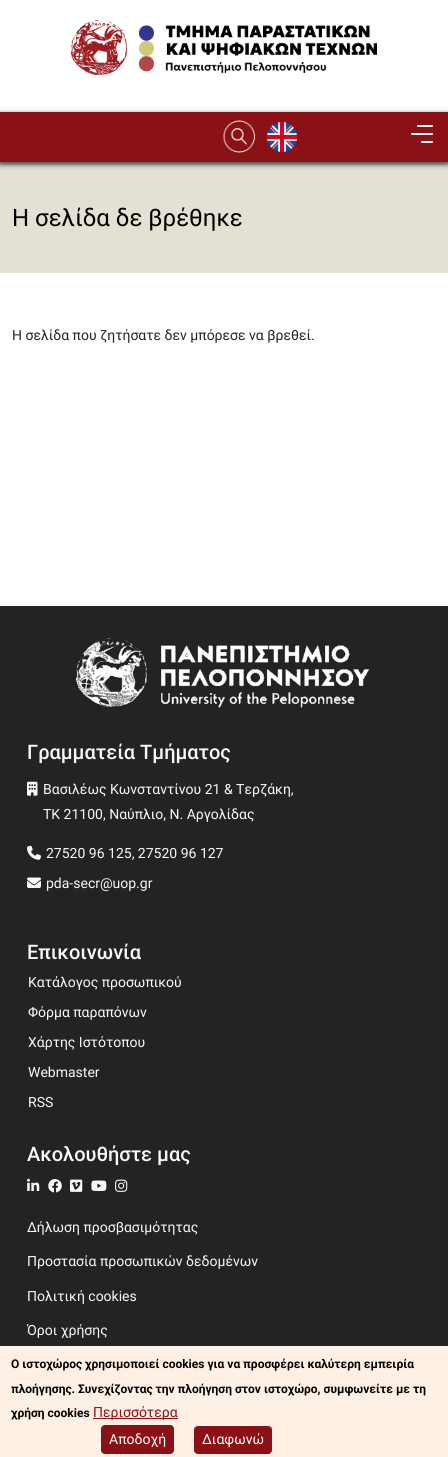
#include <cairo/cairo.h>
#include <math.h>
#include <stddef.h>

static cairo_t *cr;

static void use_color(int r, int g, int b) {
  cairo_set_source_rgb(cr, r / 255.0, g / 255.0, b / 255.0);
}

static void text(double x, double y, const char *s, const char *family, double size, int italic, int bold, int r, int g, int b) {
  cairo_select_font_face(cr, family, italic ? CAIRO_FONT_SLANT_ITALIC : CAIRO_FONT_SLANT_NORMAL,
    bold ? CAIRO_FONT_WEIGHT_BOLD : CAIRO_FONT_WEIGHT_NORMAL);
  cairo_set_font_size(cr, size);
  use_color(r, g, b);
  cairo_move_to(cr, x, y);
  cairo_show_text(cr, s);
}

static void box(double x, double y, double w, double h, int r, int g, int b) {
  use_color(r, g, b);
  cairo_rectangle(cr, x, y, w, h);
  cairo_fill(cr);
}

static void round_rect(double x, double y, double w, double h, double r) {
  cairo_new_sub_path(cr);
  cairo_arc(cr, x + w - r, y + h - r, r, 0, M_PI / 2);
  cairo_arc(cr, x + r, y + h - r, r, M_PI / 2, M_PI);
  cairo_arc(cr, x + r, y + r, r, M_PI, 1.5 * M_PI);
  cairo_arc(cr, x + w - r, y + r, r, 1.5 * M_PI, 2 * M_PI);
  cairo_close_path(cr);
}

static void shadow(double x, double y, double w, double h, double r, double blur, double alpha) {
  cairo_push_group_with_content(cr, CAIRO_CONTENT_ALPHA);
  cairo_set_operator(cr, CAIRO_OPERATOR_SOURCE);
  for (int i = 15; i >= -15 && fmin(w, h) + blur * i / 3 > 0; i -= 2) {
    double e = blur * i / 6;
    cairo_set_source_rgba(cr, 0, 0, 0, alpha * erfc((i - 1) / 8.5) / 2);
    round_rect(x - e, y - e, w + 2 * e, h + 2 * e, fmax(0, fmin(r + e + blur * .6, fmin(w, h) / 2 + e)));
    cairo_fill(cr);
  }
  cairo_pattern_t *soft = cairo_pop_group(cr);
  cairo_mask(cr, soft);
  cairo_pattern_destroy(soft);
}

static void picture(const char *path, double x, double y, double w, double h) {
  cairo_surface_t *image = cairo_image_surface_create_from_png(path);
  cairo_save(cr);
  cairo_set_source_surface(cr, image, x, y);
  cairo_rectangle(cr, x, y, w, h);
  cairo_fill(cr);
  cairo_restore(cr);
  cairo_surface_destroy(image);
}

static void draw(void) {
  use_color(255, 255, 255);
  cairo_paint(cr);
  picture("img_01.png", 71, 20, 306, 55);
  box(0, 163, 448, 110, 227, 225, 211);
  use_color(0, 0, 0);
  shadow(0, 114, 448, 50, 0, 2, 0.5);
  shadow(0, 114, 448, 50, 0, 3, 0.5);
  box(0, 112, 448, 50, 140, 17, 22);
  picture("img_02.png", 221, 114, 38, 43);
  picture("img_03.png", 267, 122, 30, 30);
  use_color(255, 255, 255);
  round_rect(417, 125, 16, 2, 1);
  cairo_fill(cr);
  round_rect(411, 133, 22, 2, 1);
  cairo_fill(cr);
  round_rect(421, 141, 12, 2, 1);
  cairo_fill(cr);
  box(0, 606, 448, 740, 34, 35, 34);
  picture("img_04.png", 76, 638, 294, 70);
  picture("img_05.png", 27, 781, 11, 15);
  picture("img_06.png", 27, 845, 14, 15);
  picture("img_07.png", 27, 877, 14, 11);
  picture("img_08.png", 27, 1178, 13, 13);
  picture("img_09.png", 48, 1179, 14, 14);
  picture("img_10.png", 70, 1179, 13, 13);
  picture("img_11.png", 91, 1180, 16, 11);
  picture("img_12.png", 115, 1179, 13, 13);
  box(0, 1346, 448, 111, 255, 240, 229);
  box(93, 1418, 85, 1, 140, 17, 22);
  round_rect(101, 1425, 73, 29, 4);
  cairo_fill(cr);
  round_rect(194, 1425, 78, 29, 4);
  cairo_fill(cr);
  use_color(255, 255, 255);
  cairo_new_path(cr);
  cairo_move_to(cr, 198, 1426);
  cairo_line_to(cr, 268, 1426);
  cairo_curve_to(cr, 270, 1426, 272, 1428, 272, 1430);
  cairo_curve_to(cr, 272, 1422, 261, 1425, 256, 1425);
  cairo_line_to(cr, 210, 1425);
  cairo_curve_to(cr, 205, 1425, 194, 1422, 194, 1430);
  cairo_curve_to(cr, 194, 1428, 196, 1426, 198, 1426);
  cairo_close_path(cr);
  cairo_fill(cr);
  text(12, 226, "Η σελίδα δε βρέθηκε", "Roboto", 24, 0, 0, 0, 0, 0);
  text(12, 340, "Η σελίδα που ζητήσατε δεν μπόρεσε να βρεθεί.", "Roboto", 14, 0, 0, 33, 37, 41);
  text(27, 759, "Γραμματεία Τμήματος", "Roboto Medium", 20, 0, 0, 248, 249, 250);
  text(43, 794, "Βασιλέως Κωνσταντίνου 21 & Τερζάκη,", "Roboto", 14, 0, 0, 248, 249, 250);
  text(43, 819, "ΤΚ 21100, Ναύπλιο, Ν. Αργολίδας", "Roboto", 14, 0, 0, 248, 249, 250);
  text(46, 858, "27520 96 125, 27520 96 127", "Roboto", 14, 0, 0, 248, 249, 250);
  text(46, 888, "pda-secr@uop.gr", "Roboto", 14, 0, 0, 248, 249, 250);
  text(27, 959, "Επικοινωνία", "Roboto Medium", 20, 0, 0, 248, 249, 250);
  text(28, 987, "Κατάλογος προσωπικού", "Roboto", 14, 0, 0, 248, 249, 250);
  text(28, 1017, "Φόρμα παραπόνων", "Roboto", 14, 0, 0, 248, 249, 250);
  text(28, 1047, "Χάρτης Ιστότοπου", "Roboto", 14, 0, 0, 248, 249, 250);
  text(28, 1077, "Webmaster", "Roboto", 14, 0, 0, 248, 249, 250);
  text(28, 1107, "RSS", "Roboto", 14, 0, 0, 248, 249, 250);
  text(27, 1161, "Ακολουθήστε μας", "Roboto Medium", 20, 0, 0, 248, 249, 250);
  text(27, 1232, "Δήλωση προσβασιμότητας", "Roboto", 14, 0, 0, 248, 249, 250);
  text(27, 1266, "Προστασία προσωπικών δεδομένων", "Roboto", 14, 0, 0, 248, 249, 250);
  text(27, 1301, "Πολιτική cookies", "Roboto", 14, 0, 0, 248, 249, 250);
  text(27, 1335, "Όροι χρήσης", "Roboto", 14, 0, 0, 248, 249, 250);
  text(11, 1368, "Ο ιστοχώρος χρησιμοποιεί cookies για να προσφέρει καλύτερη εμπειρία", "Roboto", 12, 0, 1, 0, 0, 0);
  text(11, 1393, "πλοήγησης. Συνεχίζοντας την πλοήγηση στον ιστοχώρο, συμφωνείτε με τη", "Roboto", 12, 0, 1, 0, 0, 0);
  text(11, 1417, "χρήση cookies", "Roboto", 12, 0, 1, 0, 0, 0);
  text(93, 1417, "Περισσότερα", "Roboto", 14, 0, 0, 140, 17, 22);
  text(109, 1444, "Αποδοχή", "Roboto", 14, 0, 0, 255, 255, 255);
  text(202, 1444, "Διαφωνώ", "Roboto", 14, 0, 0, 255, 255, 255);
}

int main(void) {
  cairo_surface_t *surface = cairo_image_surface_create(CAIRO_FORMAT_RGB24, 448, 1457);
  cr = cairo_create(surface);
  cairo_font_options_t *options = cairo_font_options_create();
  cairo_font_options_set_hint_metrics(options, CAIRO_HINT_METRICS_OFF);
  cairo_font_options_set_hint_style(options, CAIRO_HINT_STYLE_NONE);
  cairo_set_font_options(cr, options);
  cairo_set_miter_limit(cr, 4);
  draw();
  cairo_surface_write_to_png(surface, "out.png");
  cairo_font_options_destroy(options);
  cairo_destroy(cr);
  cairo_surface_destroy(surface);
  return 0;
}
